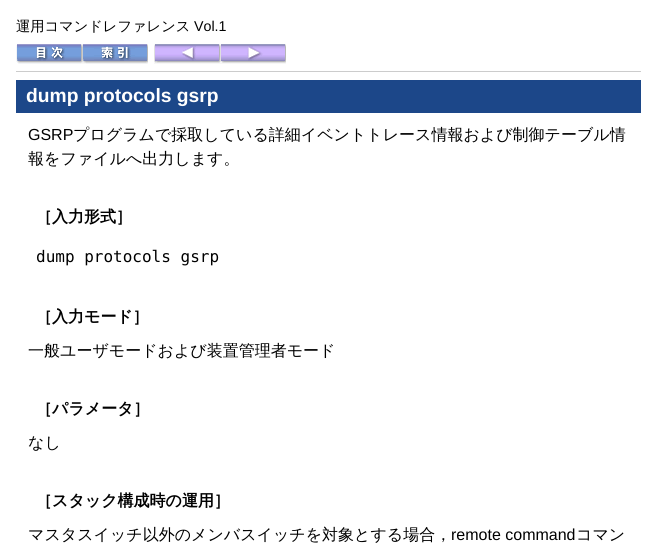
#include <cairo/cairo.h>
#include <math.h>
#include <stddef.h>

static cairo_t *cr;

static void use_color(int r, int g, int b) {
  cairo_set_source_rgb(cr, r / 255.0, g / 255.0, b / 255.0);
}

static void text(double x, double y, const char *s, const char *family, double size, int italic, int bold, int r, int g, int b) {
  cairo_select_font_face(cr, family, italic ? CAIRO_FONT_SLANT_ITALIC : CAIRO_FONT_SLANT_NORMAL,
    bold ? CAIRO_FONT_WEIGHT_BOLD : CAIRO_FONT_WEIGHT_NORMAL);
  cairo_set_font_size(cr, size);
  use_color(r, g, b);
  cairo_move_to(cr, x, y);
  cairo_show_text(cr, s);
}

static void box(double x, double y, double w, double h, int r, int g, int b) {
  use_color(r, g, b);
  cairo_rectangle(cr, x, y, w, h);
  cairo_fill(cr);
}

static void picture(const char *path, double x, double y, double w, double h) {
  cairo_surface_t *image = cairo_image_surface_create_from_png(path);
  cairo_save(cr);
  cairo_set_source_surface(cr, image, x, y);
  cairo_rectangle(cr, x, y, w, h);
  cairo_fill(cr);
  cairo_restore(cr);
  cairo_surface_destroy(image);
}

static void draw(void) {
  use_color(255, 255, 255);
  cairo_paint(cr);
  box(16, 71, 625, 1, 204, 204, 204);
  picture("img_01.png", 16, 44, 66, 20);
  picture("img_02.png", 82, 44, 66, 20);
  picture("img_03.png", 154, 44, 66, 20);
  picture("img_04.png", 220, 44, 66, 20);
  box(16, 80, 625, 33, 28, 71, 137);
  text(16, 31, "運用コマンドレファレンス", "WenQuanYi Zen Hei Medium", 14.25, 0, 0, 0, 0, 0);
  text(194, 31, "Vol.1", "Liberation Sans", 14.25, 0, 0, 0, 0, 0);
  text(26, 102, "dump protocols gsrp", "Liberation Sans", 19.25, 0, 1, 255, 255, 255);
  text(28, 140, "GSRP", "Liberation Sans", 16, 0, 0, 0, 0, 0);
  text(73, 140, "プログラムで採取している詳細イベントトレース情報および制御テーブル情", "WenQuanYi Zen Hei Medium", 16, 0, 0, 0, 0, 0);
  text(28, 164, "報をファイルへ出力します。", "WenQuanYi Zen Hei Medium", 16, 0, 0, 0, 0, 0);
  text(36, 222, "［入力形式］", "WenQuanYi Zen Hei", 16, 0, 1, 0, 0, 0);
  text(36, 262, "dump protocols gsrp", "DejaVu Sans Mono", 16, 0, 0, 0, 0, 0);
  text(36, 322, "［入力モード］", "WenQuanYi Zen Hei", 16, 0, 1, 0, 0, 0);
  text(28, 356, "一般ユーザモードおよび装置管理者モード", "WenQuanYi Zen Hei Medium", 16, 0, 0, 0, 0, 0);
  text(36, 414, "［パラメータ］", "WenQuanYi Zen Hei", 16, 0, 1, 0, 0, 0);
  text(28, 448, "なし", "WenQuanYi Zen Hei Medium", 16, 0, 0, 0, 0, 0);
  text(36, 506, "［スタック構成時の運用］", "WenQuanYi Zen Hei", 16, 0, 1, 0, 0, 0);
  text(28, 540, "マスタスイッチ以外のメンバスイッチを対象とする場合，", "WenQuanYi Zen Hei Medium", 16, 0, 0, 0, 0, 0);
  text(451, 540, "remote command", "Liberation Sans", 16, 0, 0, 0, 0, 0);
  text(576, 540, "コマン", "WenQuanYi Zen Hei Medium", 16, 0, 0, 0, 0, 0);
}

int main(void) {
  cairo_surface_t *surface = cairo_image_surface_create(CAIRO_FORMAT_RGB24, 657, 559);
  cr = cairo_create(surface);
  cairo_font_options_t *options = cairo_font_options_create();
  cairo_font_options_set_hint_metrics(options, CAIRO_HINT_METRICS_OFF);
  cairo_font_options_set_hint_style(options, CAIRO_HINT_STYLE_NONE);
  cairo_set_font_options(cr, options);
  cairo_set_miter_limit(cr, 4);
  draw();
  cairo_surface_write_to_png(surface, "out.png");
  cairo_font_options_destroy(options);
  cairo_destroy(cr);
  cairo_surface_destroy(surface);
  return 0;
}
